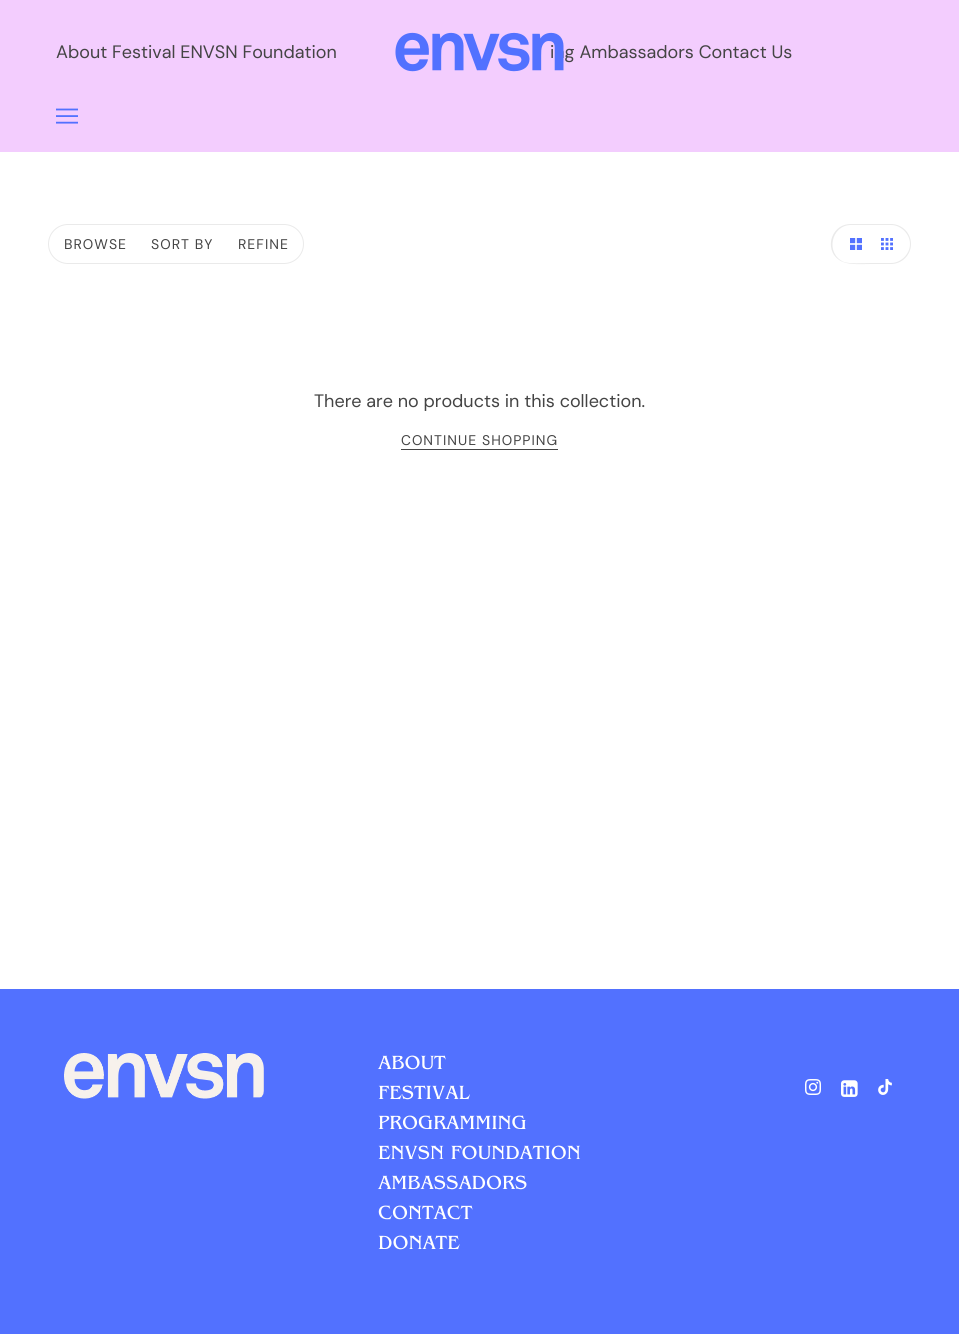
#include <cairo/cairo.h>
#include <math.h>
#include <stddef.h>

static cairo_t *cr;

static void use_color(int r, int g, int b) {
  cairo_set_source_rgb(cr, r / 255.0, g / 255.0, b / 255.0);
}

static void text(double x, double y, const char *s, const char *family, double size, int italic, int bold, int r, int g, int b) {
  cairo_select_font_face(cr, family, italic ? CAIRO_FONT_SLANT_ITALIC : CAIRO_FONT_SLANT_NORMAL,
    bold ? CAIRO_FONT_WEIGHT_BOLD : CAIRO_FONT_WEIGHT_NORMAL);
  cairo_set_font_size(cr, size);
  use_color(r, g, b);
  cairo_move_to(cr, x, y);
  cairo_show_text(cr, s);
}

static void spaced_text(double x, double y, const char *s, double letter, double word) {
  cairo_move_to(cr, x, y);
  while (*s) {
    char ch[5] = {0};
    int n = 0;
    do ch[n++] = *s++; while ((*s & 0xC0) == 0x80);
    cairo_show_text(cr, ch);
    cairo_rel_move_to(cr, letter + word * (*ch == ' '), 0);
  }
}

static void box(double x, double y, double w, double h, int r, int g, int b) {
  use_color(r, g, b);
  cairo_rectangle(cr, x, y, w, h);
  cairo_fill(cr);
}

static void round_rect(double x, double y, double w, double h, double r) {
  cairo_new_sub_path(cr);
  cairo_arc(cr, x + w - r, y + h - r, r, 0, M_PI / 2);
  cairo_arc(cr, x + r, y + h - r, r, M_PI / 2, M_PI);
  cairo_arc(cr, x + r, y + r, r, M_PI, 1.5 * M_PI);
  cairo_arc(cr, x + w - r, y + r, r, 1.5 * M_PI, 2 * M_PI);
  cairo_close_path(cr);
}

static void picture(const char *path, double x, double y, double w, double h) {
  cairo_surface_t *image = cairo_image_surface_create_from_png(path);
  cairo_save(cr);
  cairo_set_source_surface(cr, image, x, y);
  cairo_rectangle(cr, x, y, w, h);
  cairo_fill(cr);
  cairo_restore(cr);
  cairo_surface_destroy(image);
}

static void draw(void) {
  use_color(255, 255, 255);
  cairo_paint(cr);
  box(0, 0, 959, 152, 243, 205, 254);
  picture("img_02.png", 56, 108, 22, 16);
  round_rect(48.5, 224.5, 255, 39, 19.5);
  use_color(234, 234, 234);
  cairo_set_line_width(cr, 1);
  cairo_stroke(cr);
  cairo_set_fill_rule(cr, CAIRO_FILL_RULE_EVEN_ODD);
  cairo_new_path(cr);
  cairo_move_to(cr, 851, 224);
  cairo_line_to(cr, 871, 224);
  cairo_line_to(cr, 871, 264);
  cairo_curve_to(cr, 863, 264, 850, 265, 843, 262);
  cairo_curve_to(cr, 823, 254, 829, 224, 851, 224);
  cairo_close_path(cr);
  cairo_move_to(cr, 851, 225);
  cairo_line_to(cr, 871, 225);
  cairo_line_to(cr, 871, 263);
  cairo_curve_to(cr, 863, 263, 850, 264, 844, 262);
  cairo_curve_to(cr, 825, 254, 831, 225, 851, 225);
  cairo_close_path(cr);
  cairo_fill(cr);
  picture("img_03.png", 850, 238, 12, 12);
  cairo_new_path(cr);
  cairo_move_to(cr, 871, 224);
  cairo_line_to(cr, 891, 224);
  cairo_curve_to(cr, 902, 224, 911, 233, 911, 244);
  cairo_curve_to(cr, 911, 255, 902, 264, 891, 264);
  cairo_line_to(cr, 871, 264);
  cairo_close_path(cr);
  cairo_move_to(cr, 871, 225);
  cairo_line_to(cr, 891, 225);
  cairo_curve_to(cr, 901, 225, 910, 234, 910, 244);
  cairo_curve_to(cr, 910, 254, 901, 263, 891, 263);
  cairo_line_to(cr, 871, 263);
  cairo_close_path(cr);
  cairo_fill(cr);
  picture("img_04.png", 881, 238, 12, 12);
  box(401, 449, 157, 1, 68, 68, 68);
  box(0, 989, 959, 345, 82, 113, 255);
  picture("img_05.png", 64, 1053, 200, 46);
  picture("img_06.png", 805, 1079, 16, 16);
  picture("img_07.png", 841, 1080, 17, 17);
  picture("img_08.png", 878, 1079, 14, 16);
  text(56, 58, "About Festival ENVSN Foundation", "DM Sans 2", 18, 0, 0, 68, 68, 68);
  text(550, 58, "ing Ambassadors Contact Us", "DM Sans 2", 18, 0, 0, 68, 68, 68);
  picture("img_01.png", 395, 32, 169, 40);
  cairo_select_font_face(cr, "DM Sans", CAIRO_FONT_SLANT_NORMAL, CAIRO_FONT_WEIGHT_NORMAL);
  cairo_set_font_size(cr, 14);
  spaced_text(64, 249, "BROWSE", 1, 0);
  spaced_text(151, 249, "SORT BY", 1, 0);
  spaced_text(238, 249, "REFINE", 1, 0);
  text(314, 407, "There are no products in this collection.", "DM Sans 2", 18, 0, 0, 68, 68, 68);
  cairo_select_font_face(cr, "DM Sans", CAIRO_FONT_SLANT_NORMAL, CAIRO_FONT_WEIGHT_NORMAL);
  cairo_set_font_size(cr, 14);
  spaced_text(401, 445, "CONTINUE SHOPPING", 1, 0);
  text(378, 1069, "ABOUT", "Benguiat", 20, 0, 0, 255, 255, 255);
  text(378, 1099, "FESTIVAL", "Benguiat", 20, 0, 0, 255, 255, 255);
  text(378, 1129, "PROGRAMMING", "Benguiat", 20, 0, 0, 255, 255, 255);
  text(378, 1159, "ENVSN FOUNDATION", "Benguiat", 20, 0, 0, 255, 255, 255);
  text(378, 1189, "AMBASSADORS", "Benguiat", 20, 0, 0, 255, 255, 255);
  text(378, 1219, "CONTACT", "Benguiat", 20, 0, 0, 255, 255, 255);
  text(378, 1249, "DONATE", "Benguiat", 20, 0, 0, 255, 255, 255);
}

int main(void) {
  cairo_surface_t *surface = cairo_image_surface_create(CAIRO_FORMAT_RGB24, 959, 1334);
  cr = cairo_create(surface);
  cairo_font_options_t *options = cairo_font_options_create();
  cairo_font_options_set_hint_metrics(options, CAIRO_HINT_METRICS_OFF);
  cairo_font_options_set_hint_style(options, CAIRO_HINT_STYLE_NONE);
  cairo_set_font_options(cr, options);
  cairo_set_miter_limit(cr, 4);
  draw();
  cairo_surface_write_to_png(surface, "out.png");
  cairo_font_options_destroy(options);
  cairo_destroy(cr);
  cairo_surface_destroy(surface);
  return 0;
}
